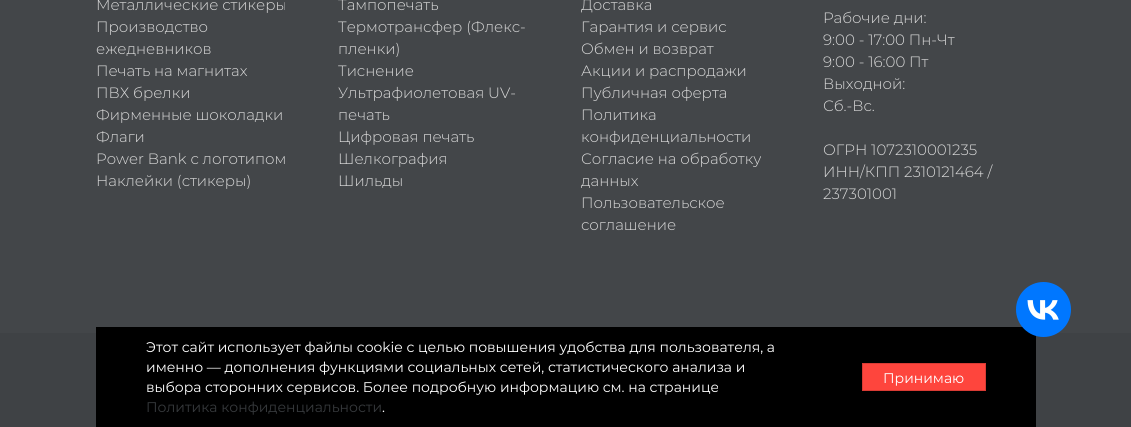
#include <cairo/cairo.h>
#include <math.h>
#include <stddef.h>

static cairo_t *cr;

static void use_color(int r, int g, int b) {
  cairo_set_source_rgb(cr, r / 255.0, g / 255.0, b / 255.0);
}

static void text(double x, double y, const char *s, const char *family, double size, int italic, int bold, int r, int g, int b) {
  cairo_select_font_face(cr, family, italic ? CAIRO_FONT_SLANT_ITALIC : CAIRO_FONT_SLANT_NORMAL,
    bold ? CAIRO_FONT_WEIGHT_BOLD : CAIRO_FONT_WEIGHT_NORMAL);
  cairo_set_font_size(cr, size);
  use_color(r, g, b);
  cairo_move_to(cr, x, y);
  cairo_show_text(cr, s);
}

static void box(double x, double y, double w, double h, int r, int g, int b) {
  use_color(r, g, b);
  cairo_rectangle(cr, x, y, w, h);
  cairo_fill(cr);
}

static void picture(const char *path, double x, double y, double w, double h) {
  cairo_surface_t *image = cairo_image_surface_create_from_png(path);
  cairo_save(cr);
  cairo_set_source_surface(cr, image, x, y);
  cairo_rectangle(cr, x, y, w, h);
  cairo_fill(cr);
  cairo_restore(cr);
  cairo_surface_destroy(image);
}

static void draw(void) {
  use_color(67, 70, 73);
  cairo_paint(cr);
  box(0, 333, 1131, 94, 63, 66, 69);
  box(96, 327, 940, 100, 0, 0, 0);
  picture("img_01.png", 1016, 282, 55, 55);
  use_color(254, 69, 61);
  cairo_rectangle(cr, 862.5, 363.5, 123, 27);
  cairo_fill_preserve(cr);
  use_color(216, 59, 52);
  cairo_set_line_width(cr, 1);
  cairo_stroke(cr);
  text(96, 10, "Металлические стикеры", "Montserrat Light", 15, 0, 0, 218, 218, 218);
  text(96, 32, "Производство", "Montserrat Light", 15, 0, 0, 218, 218, 218);
  text(96, 54, "ежедневников", "Montserrat Light", 15, 0, 0, 218, 218, 218);
  text(96, 76, "Печать на магнитах", "Montserrat Light", 15, 0, 0, 218, 218, 218);
  text(96, 98, "ПВХ брелки", "Montserrat Light", 15, 0, 0, 218, 218, 218);
  text(96, 120, "Фирменные шоколадки", "Montserrat Light", 15, 0, 0, 218, 218, 218);
  text(96, 142, "Флаги", "Montserrat Light", 15, 0, 0, 218, 218, 218);
  text(96, 164, "Power Bank с логотипом", "Montserrat Light", 15, 0, 0, 218, 218, 218);
  text(96, 186, "Наклейки (стикеры)", "Montserrat Light", 15, 0, 0, 218, 218, 218);
  text(338, 10, "Тампопечать", "Montserrat Light", 15, 0, 0, 218, 218, 218);
  text(338, 32, "Термотрансфер (Флекс-", "Montserrat Light", 15, 0, 0, 218, 218, 218);
  text(338, 54, "пленки)", "Montserrat Light", 15, 0, 0, 218, 218, 218);
  text(338, 76, "Тиснение", "Montserrat Light", 15, 0, 0, 218, 218, 218);
  text(338, 98, "Ультрафиолетовая UV-", "Montserrat Light", 15, 0, 0, 218, 218, 218);
  text(338, 120, "печать", "Montserrat Light", 15, 0, 0, 218, 218, 218);
  text(338, 142, "Цифровая печать", "Montserrat Light", 15, 0, 0, 218, 218, 218);
  text(338, 164, "Шелкография", "Montserrat Light", 15, 0, 0, 218, 218, 218);
  text(338, 186, "Шильды", "Montserrat Light", 15, 0, 0, 218, 218, 218);
  text(581, 10, "Доставка", "Montserrat Light", 15, 0, 0, 218, 218, 218);
  text(581, 32, "Гарантия и сервис", "Montserrat Light", 15, 0, 0, 218, 218, 218);
  text(581, 54, "Обмен и возврат", "Montserrat Light", 15, 0, 0, 218, 218, 218);
  text(581, 76, "Акции и распродажи", "Montserrat Light", 15, 0, 0, 218, 218, 218);
  text(581, 98, "Публичная оферта", "Montserrat Light", 15, 0, 0, 218, 218, 218);
  text(581, 120, "Политика", "Montserrat Light", 15, 0, 0, 218, 218, 218);
  text(581, 142, "конфиденциальности", "Montserrat Light", 15, 0, 0, 218, 218, 218);
  text(581, 164, "Согласие на обработку", "Montserrat Light", 15, 0, 0, 218, 218, 218);
  text(581, 186, "данных", "Montserrat Light", 15, 0, 0, 218, 218, 218);
  text(581, 208, "Пользовательское", "Montserrat Light", 15, 0, 0, 218, 218, 218);
  text(581, 230, "соглашение", "Montserrat Light", 15, 0, 0, 218, 218, 218);
  text(823, 23, "Рабочие дни:", "Montserrat Light", 15, 0, 0, 218, 218, 218);
  text(823, 45, "9:00 - 17:00 Пн-Чт", "Montserrat Light", 15, 0, 0, 218, 218, 218);
  text(823, 67, "9:00 - 16:00 Пт", "Montserrat Light", 15, 0, 0, 218, 218, 218);
  text(823, 89, "Выходной:", "Montserrat Light", 15, 0, 0, 218, 218, 218);
  text(823, 111, "Сб.-Вс.", "Montserrat Light", 15, 0, 0, 218, 218, 218);
  text(823, 155, "ОГРН 1072310001235", "Montserrat Light", 15, 0, 0, 218, 218, 218);
  text(823, 177, "ИНН/КПП 2310121464 /", "Montserrat Light", 15, 0, 0, 218, 218, 218);
  text(823, 199, "237301001", "Montserrat Light", 15, 0, 0, 218, 218, 218);
  text(146, 352, "Этот сайт использует файлы cookie с целью повышения удобства для пользователя, а", "Montserrat", 14, 0, 0, 255, 255, 255);
  text(146, 372, "именно — дополнения функциями социальных сетей, статистического анализа и", "Montserrat", 14, 0, 0, 255, 255, 255);
  text(146, 392, "выбора сторонних сервисов. Более подробную информацию см. на странице", "Montserrat", 14, 0, 0, 255, 255, 255);
  text(146, 412, "Политика конфиденциальности", "Montserrat", 14, 0, 0, 54, 57, 60);
  text(382, 412, ".", "Montserrat", 14, 0, 0, 255, 255, 255);
  text(883, 383, "Принимаю", "Montserrat", 14, 0, 0, 255, 255, 255);
}

int main(void) {
  cairo_surface_t *surface = cairo_image_surface_create(CAIRO_FORMAT_RGB24, 1131, 427);
  cr = cairo_create(surface);
  cairo_font_options_t *options = cairo_font_options_create();
  cairo_font_options_set_hint_metrics(options, CAIRO_HINT_METRICS_OFF);
  cairo_font_options_set_hint_style(options, CAIRO_HINT_STYLE_NONE);
  cairo_set_font_options(cr, options);
  cairo_set_miter_limit(cr, 4);
  draw();
  cairo_surface_write_to_png(surface, "out.png");
  cairo_font_options_destroy(options);
  cairo_destroy(cr);
  cairo_surface_destroy(surface);
  return 0;
}
